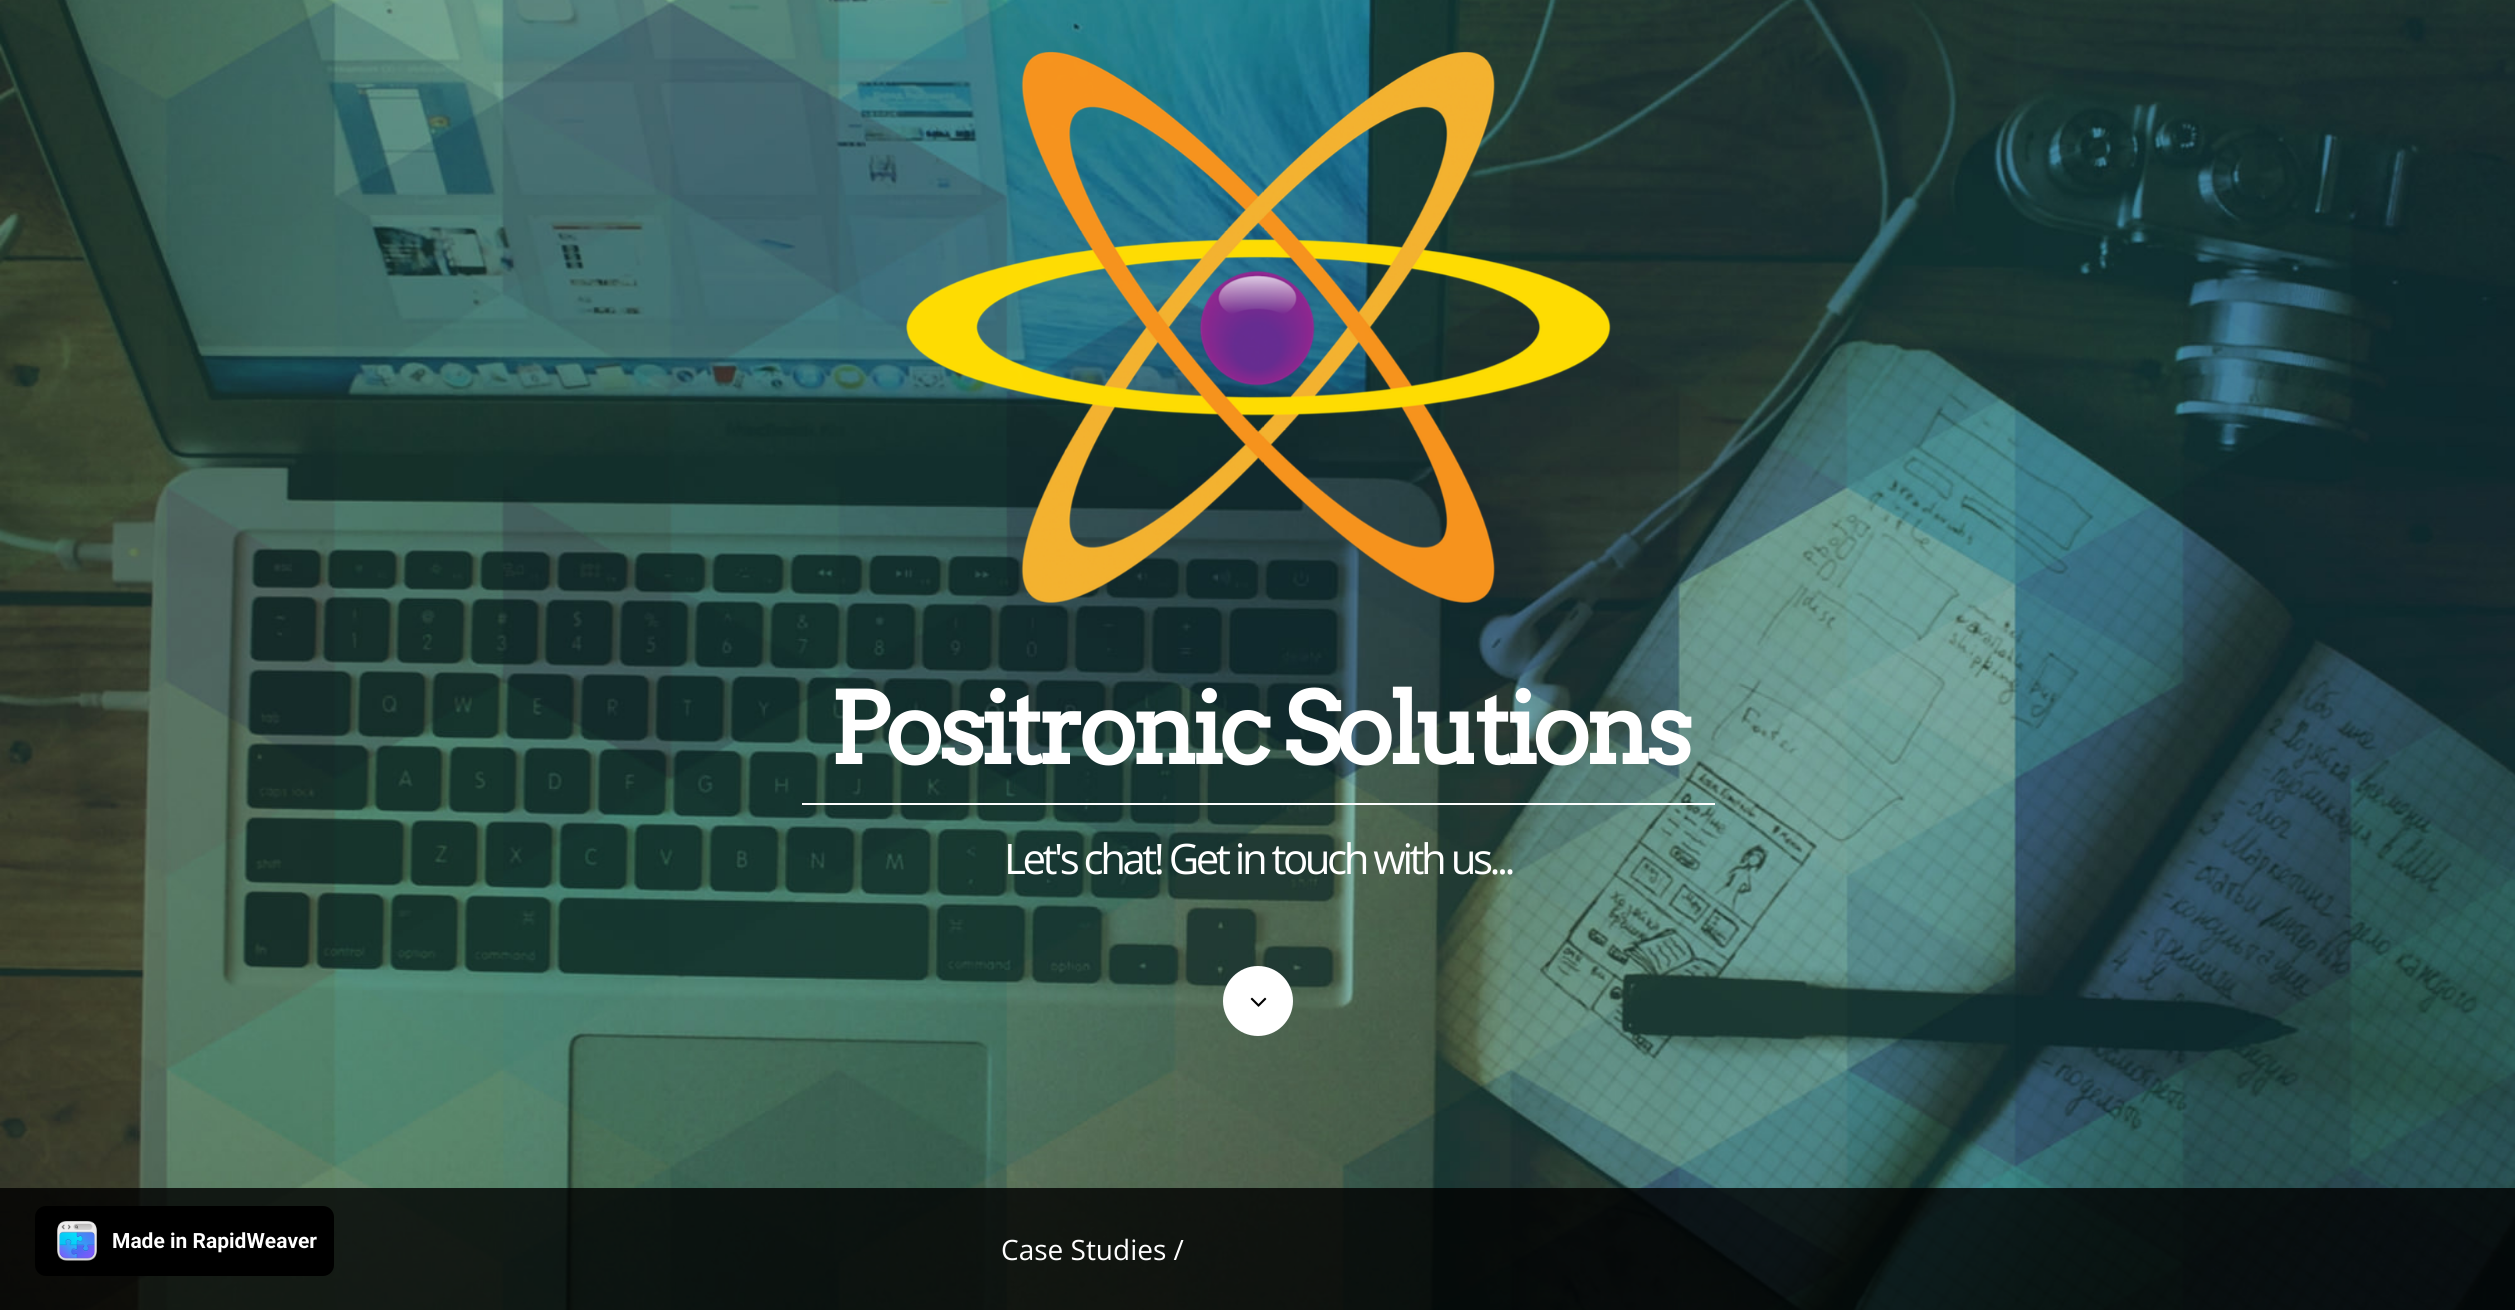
#include <cairo/cairo.h>
#include <math.h>
#include <stddef.h>

static cairo_t *cr;

static void use_color(int r, int g, int b) {
  cairo_set_source_rgb(cr, r / 255.0, g / 255.0, b / 255.0);
}

static void text(double x, double y, const char *s, const char *family, double size, int italic, int bold, int r, int g, int b) {
  cairo_select_font_face(cr, family, italic ? CAIRO_FONT_SLANT_ITALIC : CAIRO_FONT_SLANT_NORMAL,
    bold ? CAIRO_FONT_WEIGHT_BOLD : CAIRO_FONT_WEIGHT_NORMAL);
  cairo_set_font_size(cr, size);
  use_color(r, g, b);
  cairo_move_to(cr, x, y);
  cairo_show_text(cr, s);
}

static void spaced_text(double x, double y, const char *s, double letter, double word) {
  cairo_move_to(cr, x, y);
  while (*s) {
    char ch[5] = {0};
    int n = 0;
    do ch[n++] = *s++; while ((*s & 0xC0) == 0x80);
    cairo_show_text(cr, ch);
    cairo_rel_move_to(cr, letter + word * (*ch == ' '), 0);
  }
}

static void box(double x, double y, double w, double h, int r, int g, int b) {
  use_color(r, g, b);
  cairo_rectangle(cr, x, y, w, h);
  cairo_fill(cr);
}

static void round_rect(double x, double y, double w, double h, double r) {
  cairo_new_sub_path(cr);
  cairo_arc(cr, x + w - r, y + h - r, r, 0, M_PI / 2);
  cairo_arc(cr, x + r, y + h - r, r, M_PI / 2, M_PI);
  cairo_arc(cr, x + r, y + r, r, M_PI, 1.5 * M_PI);
  cairo_arc(cr, x + w - r, y + r, r, 1.5 * M_PI, 2 * M_PI);
  cairo_close_path(cr);
}

static void picture(const char *path, double x, double y, double w, double h) {
  cairo_surface_t *image = cairo_image_surface_create_from_png(path);
  cairo_save(cr);
  cairo_set_source_surface(cr, image, x, y);
  cairo_rectangle(cr, x, y, w, h);
  cairo_fill(cr);
  cairo_restore(cr);
  cairo_surface_destroy(image);
}

static void draw(void) {
  use_color(255, 255, 255);
  cairo_paint(cr);
  picture("img_02.png", 0, 0, 2515, 1310);
  cairo_set_source_rgba(cr, 0, 0, 0, 0.8);
  cairo_rectangle(cr, 0, 1188, 2515, 122);
  cairo_fill(cr);
  use_color(0, 0, 0);
  round_rect(35, 1206, 299, 70, 11);
  cairo_fill(cr);
  picture("img_01.png", 57, 1221, 40, 40);
  picture("img_03.png", 906, 51, 705, 552);
  box(802, 803, 913, 2, 255, 255, 255);
  cairo_arc(cr, 1258, 1001, 35, 0, 2 * M_PI);
  cairo_fill(cr);
  picture("img_04.png", 1250, 997, 17, 10);
  text(112, 1248, "Made in RapidWeaver", "Roboto", 21, 0, 1, 255, 255, 255);
  cairo_select_font_face(cr, "Arvo", CAIRO_FONT_SLANT_NORMAL, CAIRO_FONT_WEIGHT_BOLD);
  cairo_set_font_size(cr, 98);
  spaced_text(829, 764, "Positronic Solutions", -5.25, 0);
  cairo_select_font_face(cr, "Open Sans", CAIRO_FONT_SLANT_NORMAL, CAIRO_FONT_WEIGHT_NORMAL);
  cairo_set_font_size(cr, 42);
  spaced_text(1004, 874, "Let's chat! Get in touch with us...", -3.5, 0);
  text(1001, 1260, "Case Studies /", "Open Sans", 28, 0, 0, 255, 255, 255);
}

int main(void) {
  cairo_surface_t *surface = cairo_image_surface_create(CAIRO_FORMAT_RGB24, 2515, 1310);
  cr = cairo_create(surface);
  cairo_font_options_t *options = cairo_font_options_create();
  cairo_font_options_set_hint_metrics(options, CAIRO_HINT_METRICS_OFF);
  cairo_font_options_set_hint_style(options, CAIRO_HINT_STYLE_NONE);
  cairo_set_font_options(cr, options);
  cairo_set_miter_limit(cr, 4);
  draw();
  cairo_surface_write_to_png(surface, "out.png");
  cairo_font_options_destroy(options);
  cairo_destroy(cr);
  cairo_surface_destroy(surface);
  return 0;
}
